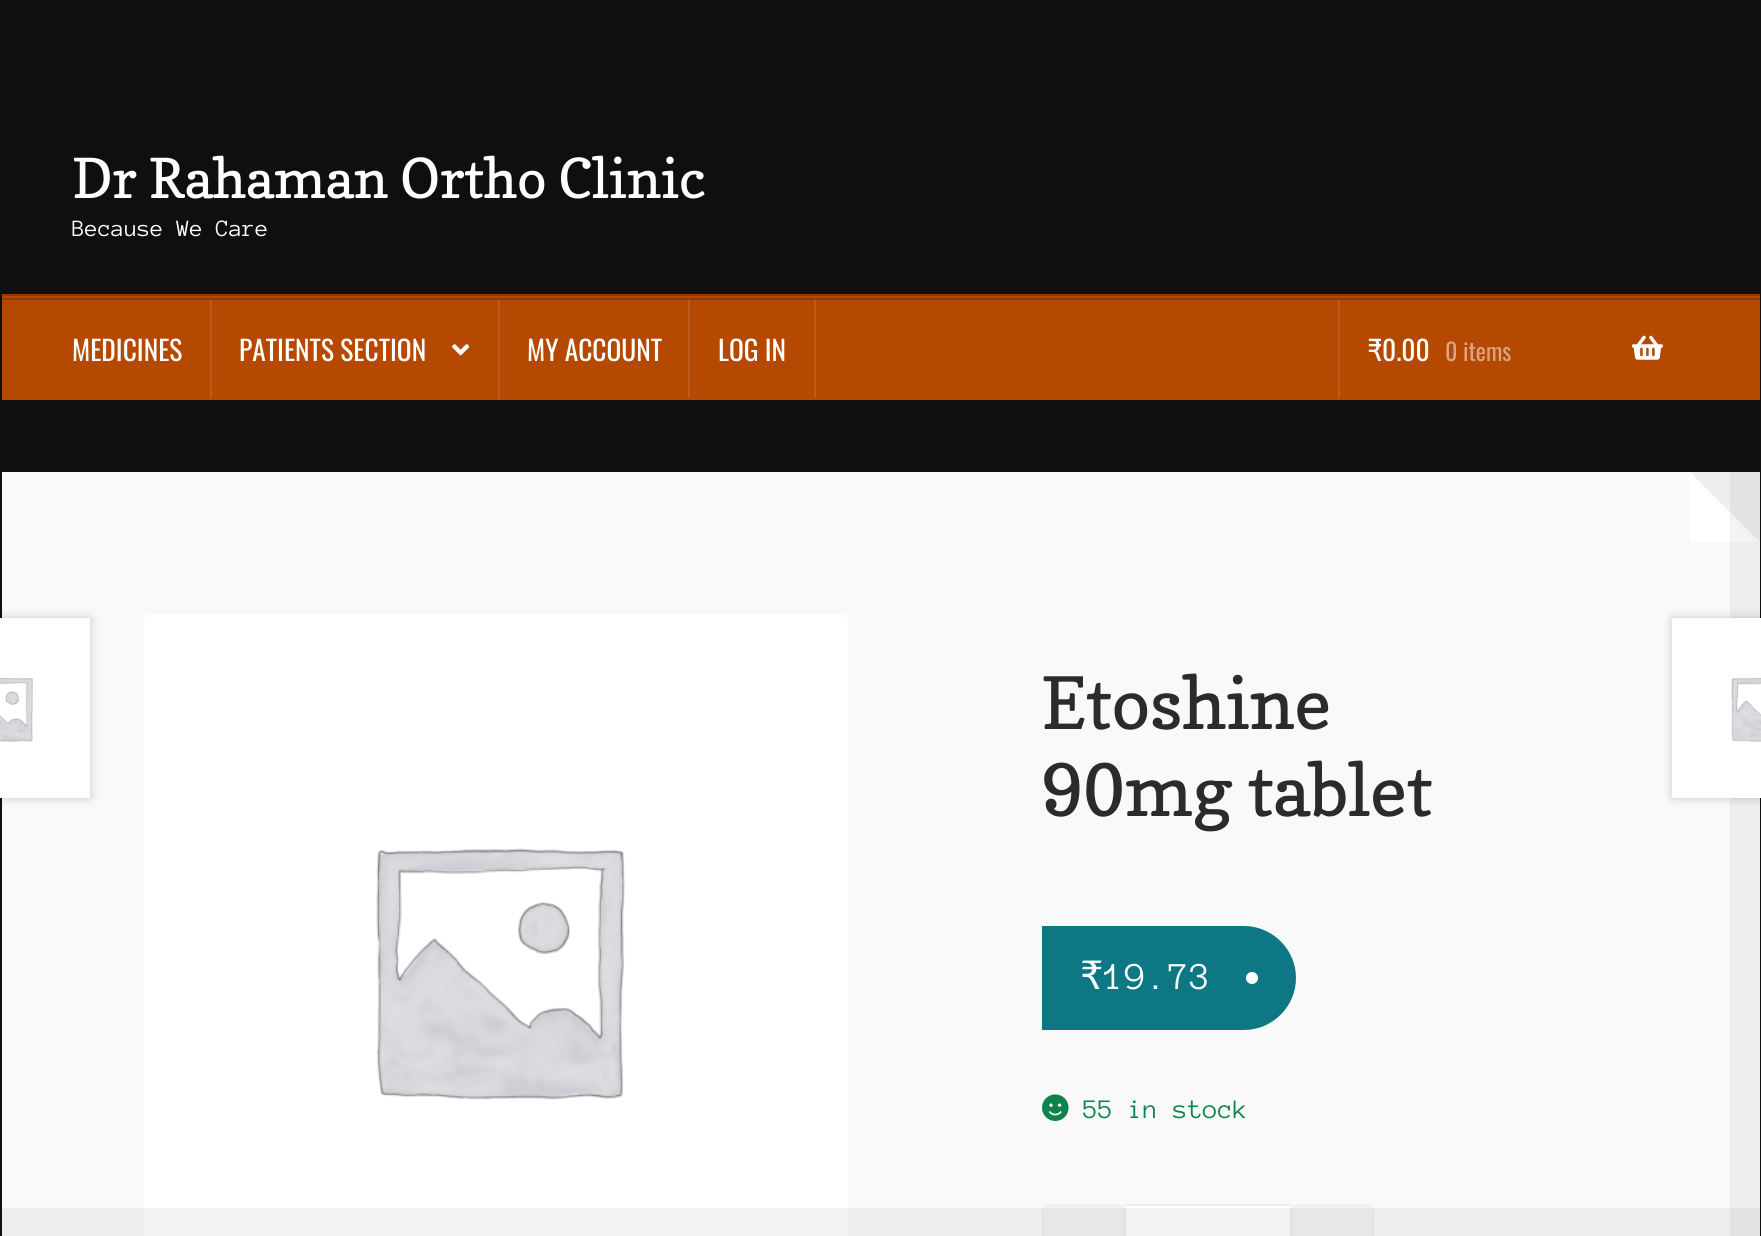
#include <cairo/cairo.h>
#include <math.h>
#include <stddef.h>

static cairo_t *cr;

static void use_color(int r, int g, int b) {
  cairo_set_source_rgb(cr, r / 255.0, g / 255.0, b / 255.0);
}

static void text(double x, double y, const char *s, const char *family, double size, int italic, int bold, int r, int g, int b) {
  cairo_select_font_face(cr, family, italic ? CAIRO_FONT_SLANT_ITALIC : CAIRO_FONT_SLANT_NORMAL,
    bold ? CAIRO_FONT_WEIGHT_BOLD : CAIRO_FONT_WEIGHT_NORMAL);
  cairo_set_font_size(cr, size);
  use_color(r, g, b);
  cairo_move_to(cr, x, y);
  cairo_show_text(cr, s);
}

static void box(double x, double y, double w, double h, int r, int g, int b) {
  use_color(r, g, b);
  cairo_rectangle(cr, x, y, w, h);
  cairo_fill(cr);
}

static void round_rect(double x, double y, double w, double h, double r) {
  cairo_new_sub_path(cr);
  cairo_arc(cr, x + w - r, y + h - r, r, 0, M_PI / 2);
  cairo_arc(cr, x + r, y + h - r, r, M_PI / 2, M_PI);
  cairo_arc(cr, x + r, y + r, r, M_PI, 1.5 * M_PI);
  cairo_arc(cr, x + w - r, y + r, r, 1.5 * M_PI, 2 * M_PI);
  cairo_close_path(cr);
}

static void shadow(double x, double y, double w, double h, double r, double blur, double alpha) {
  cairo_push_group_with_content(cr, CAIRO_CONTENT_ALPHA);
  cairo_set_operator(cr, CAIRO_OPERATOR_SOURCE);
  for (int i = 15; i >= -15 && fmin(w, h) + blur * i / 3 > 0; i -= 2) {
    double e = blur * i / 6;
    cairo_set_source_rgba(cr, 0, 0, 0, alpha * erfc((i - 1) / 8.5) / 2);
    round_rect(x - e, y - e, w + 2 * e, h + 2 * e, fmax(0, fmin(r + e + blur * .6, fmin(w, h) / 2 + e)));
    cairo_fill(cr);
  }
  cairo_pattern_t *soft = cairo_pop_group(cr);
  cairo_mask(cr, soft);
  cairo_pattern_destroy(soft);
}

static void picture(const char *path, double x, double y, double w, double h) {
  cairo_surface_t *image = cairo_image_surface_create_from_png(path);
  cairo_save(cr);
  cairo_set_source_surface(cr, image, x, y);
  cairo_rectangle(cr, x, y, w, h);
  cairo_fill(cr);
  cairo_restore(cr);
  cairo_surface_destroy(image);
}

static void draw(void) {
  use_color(15, 15, 15);
  cairo_paint(cr);
  box(2, 296, 1758, 104, 182, 73, 2);
  box(2, 294, 1758, 2, 146, 58, 2);
  box(2, 298, 1758, 2, 146, 58, 2);
  box(210, 300, 2, 98, 189, 91, 27);
  box(498, 300, 2, 100, 189, 91, 27);
  picture("img_01.png", 452, 344, 18, 12);
  box(688, 300, 2, 98, 189, 91, 27);
  box(814, 300, 2, 98, 189, 91, 27);
  box(1338, 300, 2, 98, 189, 91, 27);
  picture("img_02.png", 1632, 335, 31, 25);
  box(2, 472, 1758, 764, 249, 249, 249);
  use_color(255, 255, 255);
  cairo_new_path(cr);
  cairo_move_to(cr, 1760, 542);
  cairo_line_to(cr, 1690, 542);
  cairo_line_to(cr, 1690, 472);
  cairo_close_path(cr);
  cairo_fill(cr);
  use_color(238, 238, 238);
  cairo_new_path(cr);
  cairo_move_to(cr, 1760, 472);
  cairo_line_to(cr, 1760, 542);
  cairo_line_to(cr, 1690, 472);
  cairo_close_path(cr);
  cairo_fill(cr);
  use_color(0, 0, 0);
  shadow(-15, 618, 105, 180, 0, 5, 0.2);
  picture("img_03.png", 0, 618, 90, 180);
  cairo_set_source_rgba(cr, 0, 0, 0, 0.05);
  cairo_rectangle(cr, 1730, 472, 30, 764);
  cairo_fill(cr);
  use_color(0, 0, 0);
  shadow(1672, 618, 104, 180, 0, 5, 0.2);
  picture("img_04.png", 1672, 618, 89, 180);
  picture("img_05.png", 144, 614, 704, 622);
  use_color(14, 119, 132);
  cairo_new_path(cr);
  cairo_move_to(cr, 1042, 926);
  cairo_line_to(cr, 1244, 926);
  cairo_curve_to(cr, 1272.5, 926, 1296, 949.5, 1296, 978);
  cairo_curve_to(cr, 1296, 1006.5, 1272.5, 1030, 1244, 1030);
  cairo_line_to(cr, 1042, 1030);
  cairo_close_path(cr);
  cairo_fill(cr);
  use_color(255, 255, 255);
  cairo_arc(cr, 1252, 978, 6, 0, 2 * M_PI);
  cairo_fill(cr);
  picture("img_06.png", 1042, 1094, 27, 27);
  use_color(242, 242, 242);
  round_rect(1043, 1205, 80, 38, 5);
  cairo_fill_preserve(cr);
  use_color(239, 239, 239);
  cairo_stroke(cr);
  use_color(255, 255, 255);
  cairo_rectangle(cr, 1125, 1205, 166, 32);
  cairo_fill_preserve(cr);
  use_color(239, 239, 239);
  cairo_stroke(cr);
  use_color(242, 242, 242);
  round_rect(1293, 1205, 80, 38, 5);
  cairo_fill_preserve(cr);
  use_color(239, 239, 239);
  cairo_stroke(cr);
  cairo_set_source_rgba(cr, 0, 0, 0, 0.05);
  cairo_rectangle(cr, 2, 1208, 1758, 28);
  cairo_fill(cr);
  text(72, 198, "Dr Rahaman Ortho Clinic", "Copse", 54.8, 0, 0, 255, 255, 255);
  text(72, 236, "Because We Care", "Anonymous Pro", 24, 0, 0, 255, 255, 255);
  text(72, 361, "MEDICINES", "Oswald", 27.5, 0, 0, 255, 255, 255);
  text(239, 361, "PATIENTS SECTION", "Oswald", 27.5, 0, 0, 255, 255, 255);
  text(527, 361, "MY ACCOUNT", "Oswald", 27.5, 0, 0, 255, 255, 255);
  text(718, 361, "LOG IN", "Oswald", 27.5, 0, 0, 255, 255, 255);
  text(1368, 361, "₹0.00", "Oswald", 27.5, 0, 0, 255, 255, 255);
  text(1445, 361, "0 items", "Oswald", 24, 0, 0, 219, 164, 129);
  text(1041, 729, "Etoshine", "Copse", 71.75, 0, 0, 43, 43, 43);
  text(1041, 816, "90mg tablet", "Copse", 71.75, 0, 0, 43, 43, 43);
  text(1080, 989, "₹", "DejaVu Sans Mono", 39, 0, 0, 255, 255, 255);
  text(1104, 989, "19.73", "Anonymous Pro", 39, 0, 0, 255, 255, 255);
  text(1083, 1118, "55 in stock", "Anonymous Pro", 27.5, 0, 0, 15, 131, 77);
}

int main(void) {
  cairo_surface_t *surface = cairo_image_surface_create(CAIRO_FORMAT_RGB24, 1761, 1236);
  cr = cairo_create(surface);
  cairo_font_options_t *options = cairo_font_options_create();
  cairo_font_options_set_hint_metrics(options, CAIRO_HINT_METRICS_OFF);
  cairo_font_options_set_hint_style(options, CAIRO_HINT_STYLE_NONE);
  cairo_set_font_options(cr, options);
  cairo_set_miter_limit(cr, 4);
  draw();
  cairo_surface_write_to_png(surface, "out.png");
  cairo_font_options_destroy(options);
  cairo_destroy(cr);
  cairo_surface_destroy(surface);
  return 0;
}
